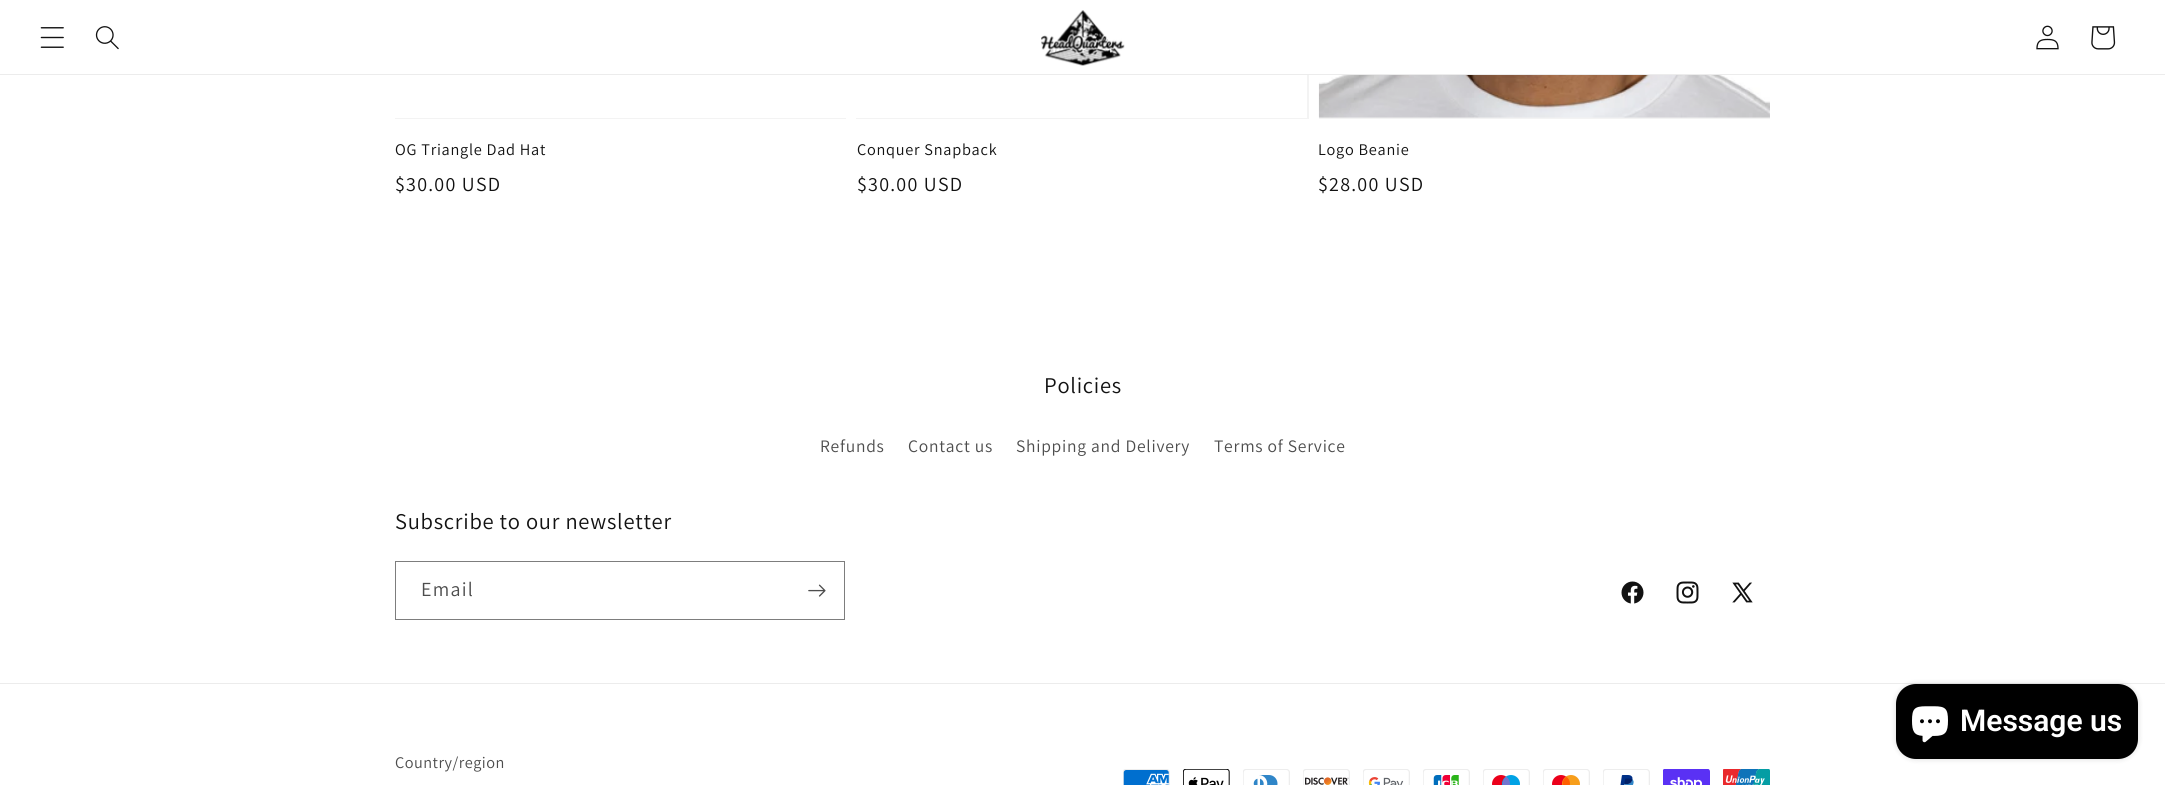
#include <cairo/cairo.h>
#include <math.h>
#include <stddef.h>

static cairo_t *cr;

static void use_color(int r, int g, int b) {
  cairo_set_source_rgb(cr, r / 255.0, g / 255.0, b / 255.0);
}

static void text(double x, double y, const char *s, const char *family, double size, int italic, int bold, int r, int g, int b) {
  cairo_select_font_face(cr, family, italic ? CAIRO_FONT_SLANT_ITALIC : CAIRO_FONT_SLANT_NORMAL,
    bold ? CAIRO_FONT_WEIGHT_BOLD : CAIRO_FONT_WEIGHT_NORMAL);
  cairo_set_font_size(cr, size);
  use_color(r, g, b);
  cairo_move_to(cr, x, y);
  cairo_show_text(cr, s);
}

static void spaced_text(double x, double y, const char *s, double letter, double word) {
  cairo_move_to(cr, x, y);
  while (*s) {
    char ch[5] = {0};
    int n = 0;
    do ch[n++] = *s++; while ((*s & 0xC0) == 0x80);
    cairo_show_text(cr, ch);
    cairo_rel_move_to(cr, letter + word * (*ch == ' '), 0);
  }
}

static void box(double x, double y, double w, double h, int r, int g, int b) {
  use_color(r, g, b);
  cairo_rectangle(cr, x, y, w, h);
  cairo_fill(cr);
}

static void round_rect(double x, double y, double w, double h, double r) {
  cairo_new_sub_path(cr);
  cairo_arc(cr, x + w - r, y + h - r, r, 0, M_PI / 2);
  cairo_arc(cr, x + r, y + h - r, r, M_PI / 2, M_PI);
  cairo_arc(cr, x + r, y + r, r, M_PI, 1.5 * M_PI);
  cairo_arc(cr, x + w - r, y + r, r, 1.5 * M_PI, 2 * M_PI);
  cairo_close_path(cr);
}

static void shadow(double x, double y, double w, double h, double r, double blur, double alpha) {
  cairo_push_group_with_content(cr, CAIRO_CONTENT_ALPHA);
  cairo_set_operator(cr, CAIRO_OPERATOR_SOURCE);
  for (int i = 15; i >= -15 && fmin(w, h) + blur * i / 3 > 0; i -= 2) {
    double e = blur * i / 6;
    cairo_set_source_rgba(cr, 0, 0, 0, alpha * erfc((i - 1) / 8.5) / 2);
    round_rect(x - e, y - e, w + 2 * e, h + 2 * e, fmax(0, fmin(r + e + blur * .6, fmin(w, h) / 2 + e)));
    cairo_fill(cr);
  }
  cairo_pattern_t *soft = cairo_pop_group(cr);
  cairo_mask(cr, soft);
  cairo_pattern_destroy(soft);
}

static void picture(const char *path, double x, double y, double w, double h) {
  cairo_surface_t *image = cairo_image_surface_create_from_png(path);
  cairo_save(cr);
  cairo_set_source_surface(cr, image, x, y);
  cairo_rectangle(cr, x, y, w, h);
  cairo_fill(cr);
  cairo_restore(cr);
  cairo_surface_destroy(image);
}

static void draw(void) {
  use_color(255, 255, 255);
  cairo_paint(cr);
  box(0, 74, 2165, 1, 236, 236, 236);
  picture("img_01.png", 40, 27, 24, 21);
  picture("img_02.png", 95, 26, 24, 24);
  picture("img_03.png", 1041, 10, 84, 56);
  picture("img_04.png", 2036, 25, 23, 25);
  picture("img_05.png", 2091, 26, 25, 24);
  box(395, 118, 451, 1, 243, 243, 243);
  box(856, 75, 453, 44, 243, 243, 243);
  box(856, 75, 451, 43, 255, 255, 255);
  box(1319, 117, 451, 2, 243, 243, 243);
  picture("img_06.png", 1318, 75, 452, 43);
  cairo_rectangle(cr, 395.5, 561.5, 449, 58);
  use_color(125, 125, 125);
  cairo_set_line_width(cr, 1);
  cairo_stroke(cr);
  picture("img_07.png", 808, 584, 18, 13);
  picture("img_08.png", 1621, 581, 23, 23);
  picture("img_09.png", 1676, 581, 23, 23);
  picture("img_10.png", 1732, 582, 21, 21);
  box(0, 683, 2165, 1, 236, 236, 236);
  picture("img_11.png", 1123, 769, 47, 16);
  picture("img_12.png", 1183, 769, 47, 16);
  picture("img_13.png", 1243, 769, 47, 16);
  picture("img_14.png", 1303, 769, 47, 16);
  picture("img_15.png", 1363, 769, 47, 16);
  picture("img_16.png", 1423, 769, 47, 16);
  picture("img_17.png", 1483, 769, 47, 16);
  picture("img_18.png", 1543, 769, 47, 16);
  picture("img_19.png", 1603, 769, 47, 16);
  picture("img_20.png", 1663, 769, 47, 16);
  picture("img_21.png", 1723, 769, 47, 16);
  use_color(0, 0, 0);
  shadow(1896, 684, 242, 75, 20, 3, 0.15);
  use_color(0, 0, 0);
  round_rect(1896, 684, 242, 75, 20);
  cairo_fill(cr);
  picture("img_22.png", 1912, 706, 36, 37);
  cairo_select_font_face(cr, "Assistant", CAIRO_FONT_SLANT_NORMAL, CAIRO_FONT_WEIGHT_NORMAL);
  cairo_set_font_size(cr, 16.25);
  use_color(18, 18, 18);
  spaced_text(395, 155, "OG Triangle Dad Hat", 0.75, 0);
  cairo_set_font_size(cr, 20);
  spaced_text(395, 191, "$30.00 USD", 1.25, 0);
  cairo_set_font_size(cr, 16.25);
  spaced_text(857, 155, "Conquer Snapback", 0.75, 0);
  cairo_set_font_size(cr, 20);
  spaced_text(857, 191, "$30.00 USD", 1.25, 0);
  cairo_set_font_size(cr, 16.25);
  spaced_text(1318, 155, "Logo Beanie", 0.75, 0);
  cairo_set_font_size(cr, 20);
  spaced_text(1318, 191, "$28.00 USD", 1.25, 0);
  cairo_set_font_size(cr, 22.5);
  spaced_text(1044, 393, "Policies", 0.75, 0);
  cairo_set_font_size(cr, 17.5);
  use_color(77, 77, 77);
  spaced_text(820, 452, "Refunds", 0.75, 0);
  spaced_text(908, 452, "Contact us", 0.75, 0);
  spaced_text(1016, 452, "Shipping and Delivery", 0.75, 0);
  spaced_text(1214, 452, "Terms of Service", 0.75, 0);
  cairo_set_font_size(cr, 22.5);
  use_color(18, 18, 18);
  spaced_text(395, 529, "Subscribe to our newsletter", 0.75, 0);
  cairo_set_font_size(cr, 20);
  use_color(77, 77, 77);
  spaced_text(421, 596, "Email", 1.25, 0);
  cairo_set_font_size(cr, 16.25);
  spaced_text(395, 768, "Country/region", 0.5, 0);
  text(1960, 731, "Message us", "Roboto SemiBold", 30, 0, 0, 255, 255, 255);
}

int main(void) {
  cairo_surface_t *surface = cairo_image_surface_create(CAIRO_FORMAT_RGB24, 2165, 785);
  cr = cairo_create(surface);
  cairo_font_options_t *options = cairo_font_options_create();
  cairo_font_options_set_hint_metrics(options, CAIRO_HINT_METRICS_OFF);
  cairo_font_options_set_hint_style(options, CAIRO_HINT_STYLE_NONE);
  cairo_set_font_options(cr, options);
  cairo_set_miter_limit(cr, 4);
  draw();
  cairo_surface_write_to_png(surface, "out.png");
  cairo_font_options_destroy(options);
  cairo_destroy(cr);
  cairo_surface_destroy(surface);
  return 0;
}
